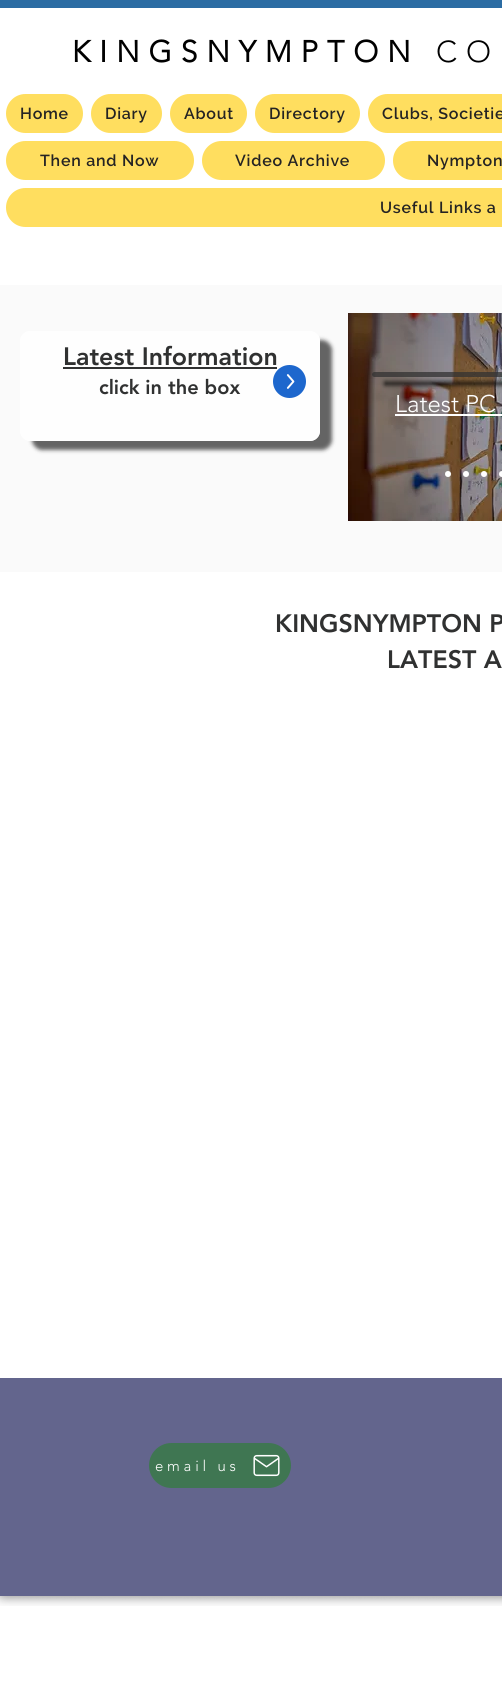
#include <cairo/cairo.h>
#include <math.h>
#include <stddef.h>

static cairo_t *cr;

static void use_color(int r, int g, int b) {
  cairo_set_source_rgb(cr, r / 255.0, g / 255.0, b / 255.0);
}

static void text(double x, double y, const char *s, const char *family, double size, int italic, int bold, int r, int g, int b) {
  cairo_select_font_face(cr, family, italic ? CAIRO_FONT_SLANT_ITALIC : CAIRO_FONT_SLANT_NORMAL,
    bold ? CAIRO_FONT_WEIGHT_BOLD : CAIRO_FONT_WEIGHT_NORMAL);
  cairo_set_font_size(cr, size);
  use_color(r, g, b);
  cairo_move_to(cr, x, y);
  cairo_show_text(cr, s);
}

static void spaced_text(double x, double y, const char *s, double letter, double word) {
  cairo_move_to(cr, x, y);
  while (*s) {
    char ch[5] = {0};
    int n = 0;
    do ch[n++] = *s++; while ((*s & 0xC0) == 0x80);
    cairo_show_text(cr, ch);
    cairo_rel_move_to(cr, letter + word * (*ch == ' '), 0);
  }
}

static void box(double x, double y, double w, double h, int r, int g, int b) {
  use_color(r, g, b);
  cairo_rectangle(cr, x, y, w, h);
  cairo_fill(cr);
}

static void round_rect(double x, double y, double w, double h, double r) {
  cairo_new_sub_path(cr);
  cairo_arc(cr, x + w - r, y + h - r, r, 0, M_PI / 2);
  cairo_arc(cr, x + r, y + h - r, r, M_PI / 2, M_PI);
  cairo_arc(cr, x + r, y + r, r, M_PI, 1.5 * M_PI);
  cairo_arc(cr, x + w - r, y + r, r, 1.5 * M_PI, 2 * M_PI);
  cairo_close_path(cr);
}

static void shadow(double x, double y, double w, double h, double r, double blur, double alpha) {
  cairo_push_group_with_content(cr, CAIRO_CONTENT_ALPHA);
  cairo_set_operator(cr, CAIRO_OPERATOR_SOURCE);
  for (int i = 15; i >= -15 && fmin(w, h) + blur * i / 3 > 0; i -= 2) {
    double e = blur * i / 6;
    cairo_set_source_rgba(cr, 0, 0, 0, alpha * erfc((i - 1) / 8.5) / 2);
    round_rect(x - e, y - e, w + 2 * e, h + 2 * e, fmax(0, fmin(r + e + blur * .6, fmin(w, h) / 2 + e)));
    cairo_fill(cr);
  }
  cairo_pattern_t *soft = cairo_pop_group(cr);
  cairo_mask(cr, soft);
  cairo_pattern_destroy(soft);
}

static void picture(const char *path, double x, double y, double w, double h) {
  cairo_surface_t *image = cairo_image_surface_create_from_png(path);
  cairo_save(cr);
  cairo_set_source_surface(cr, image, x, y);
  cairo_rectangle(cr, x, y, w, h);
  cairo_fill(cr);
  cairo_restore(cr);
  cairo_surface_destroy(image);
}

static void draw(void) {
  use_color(255, 255, 255);
  cairo_paint(cr);
  box(0, 0, 502, 8, 43, 108, 163);
  use_color(255, 222, 95);
  round_rect(6, 94, 77, 39, 19.5);
  cairo_fill(cr);
  round_rect(91, 94, 71, 39, 19.5);
  cairo_fill(cr);
  round_rect(170, 94, 77, 39, 19.5);
  cairo_fill(cr);
  round_rect(255, 94, 105, 39, 19.5);
  cairo_fill(cr);
  round_rect(368, 94, 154, 39, 19.5);
  cairo_fill(cr);
  round_rect(6, 141, 188, 39, 19.5);
  cairo_fill(cr);
  round_rect(202, 141, 183, 39, 19.5);
  cairo_fill(cr);
  round_rect(393, 141, 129, 39, 19.5);
  cairo_fill(cr);
  round_rect(6, 188, 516, 39, 19.5);
  cairo_fill(cr);
  box(0, 285, 502, 287, 250, 250, 250);
  cairo_save(cr);
  cairo_set_fill_rule(cr, CAIRO_FILL_RULE_EVEN_ODD);
  cairo_new_path(cr);
  cairo_move_to(cr, 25, 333);
  cairo_line_to(cr, 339, 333);
  cairo_line_to(cr, 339, 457);
  cairo_line_to(cr, 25, 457);
  cairo_close_path(cr);
  cairo_move_to(cr, 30, 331);
  cairo_line_to(cr, 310, 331);
  cairo_curve_to(cr, 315.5, 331, 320, 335.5, 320, 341);
  cairo_line_to(cr, 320, 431);
  cairo_curve_to(cr, 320, 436.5, 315.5, 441, 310, 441);
  cairo_line_to(cr, 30, 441);
  cairo_curve_to(cr, 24.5, 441, 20, 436.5, 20, 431);
  cairo_line_to(cr, 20, 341);
  cairo_curve_to(cr, 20, 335.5, 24.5, 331, 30, 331);
  cairo_close_path(cr);
  cairo_clip(cr);
  use_color(0, 0, 0);
  shadow(32, 340, 300, 110, 10, 2, 0.6);
  cairo_restore(cr);
  cairo_set_source_rgba(cr, 1, 1, 1, 0.88);
  round_rect(20, 331, 300, 110, 10);
  cairo_fill(cr);
  picture("img_01.png", 273, 365, 33, 33);
  box(63, 367, 214, 2, 48, 49, 49);
  picture("img_02.png", 348, 313, 154, 208);
  use_color(0, 0, 0);
  shadow(384, 381, 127, 5, 2.5, 2, 0.6);
  cairo_set_source_rgba(cr, 0.188, 0.192, 0.192, 0.73);
  round_rect(372, 372, 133, 5, 2.5);
  cairo_fill(cr);
  box(395, 414, 107, 2, 255, 255, 255);
  cairo_arc(cr, 448, 474, 3, 0, 2 * M_PI);
  cairo_fill(cr);
  cairo_arc(cr, 466, 474, 3, 0, 2 * M_PI);
  cairo_fill(cr);
  cairo_arc(cr, 484, 474, 3, 0, 2 * M_PI);
  cairo_fill(cr);
  cairo_arc(cr, 502, 474, 3, 0, 2 * M_PI);
  cairo_fill(cr);
  box(0, 1378, 502, 218, 99, 101, 141);
  picture("img_03.png", 0, 1596, 35, 10);
  picture("img_04.png", 35, 1596, 467, 10);
  use_color(63, 118, 82);
  round_rect(149, 1443, 142, 45, 22.5);
  cairo_fill(cr);
  picture("img_05.png", 253, 1454, 27, 23);
  cairo_select_font_face(cr, "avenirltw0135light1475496", CAIRO_FONT_SLANT_NORMAL, CAIRO_FONT_WEIGHT_BOLD);
  cairo_set_font_size(cr, 30);
  use_color(0, 0, 0);
  spaced_text(72, 62, "KINGSNYMPTON", 9, 0);
  cairo_select_font_face(cr, "avenirltw0135light1475496 Light", CAIRO_FONT_SLANT_NORMAL, CAIRO_FONT_WEIGHT_NORMAL);
  spaced_text(436, 62, "CO", 9, 0);
  cairo_select_font_face(cr, "Raleway SemiBold", CAIRO_FONT_SLANT_NORMAL, CAIRO_FONT_WEIGHT_NORMAL);
  cairo_set_font_size(cr, 16);
  use_color(36, 35, 35);
  spaced_text(20, 119, "Home", 0.75, 0);
  spaced_text(105, 119, "Diary", 0.75, 0);
  spaced_text(184, 119, "About", 0.75, 0);
  spaced_text(269, 119, "Directory", 0.75, 0);
  spaced_text(382, 119, "Clubs, Societie", 0.75, 0);
  spaced_text(40, 166, "Then and Now", 0.75, 0);
  spaced_text(235, 166, "Video Archive", 0.75, 0);
  spaced_text(427, 166, "Nympton", 0.75, 0);
  spaced_text(380, 213, "Useful Links a", 0.75, 0);
  text(63, 365, "Latest Information", "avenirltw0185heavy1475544 Black", 25, 0, 0, 48, 49, 49);
  text(99, 394, "click in the box", "avenirltw0185heavy1475544 Black", 20, 0, 0, 48, 49, 49);
  text(395, 412, "Latest PC", "avenirltw0135light1475496 Light", 24, 0, 0, 255, 255, 255);
  text(275, 632, "KINGSNYMPTON P", "avenirltw0185heavy1475544 Black", 25, 0, 0, 48, 49, 49);
  text(387, 668, "LATEST A", "avenirltw0185heavy1475544 Black", 25, 0, 0, 48, 49, 49);
  cairo_select_font_face(cr, "avenirltw0135light1475496 Light", CAIRO_FONT_SLANT_NORMAL, CAIRO_FONT_WEIGHT_NORMAL);
  cairo_set_font_size(cr, 15);
  use_color(255, 255, 255);
  spaced_text(155, 1471, "email us", 3.75, 0);
}

int main(void) {
  cairo_surface_t *surface = cairo_image_surface_create(CAIRO_FORMAT_RGB24, 502, 1704);
  cr = cairo_create(surface);
  cairo_font_options_t *options = cairo_font_options_create();
  cairo_font_options_set_hint_metrics(options, CAIRO_HINT_METRICS_OFF);
  cairo_font_options_set_hint_style(options, CAIRO_HINT_STYLE_NONE);
  cairo_set_font_options(cr, options);
  cairo_set_miter_limit(cr, 4);
  draw();
  cairo_surface_write_to_png(surface, "out.png");
  cairo_font_options_destroy(options);
  cairo_destroy(cr);
  cairo_surface_destroy(surface);
  return 0;
}
